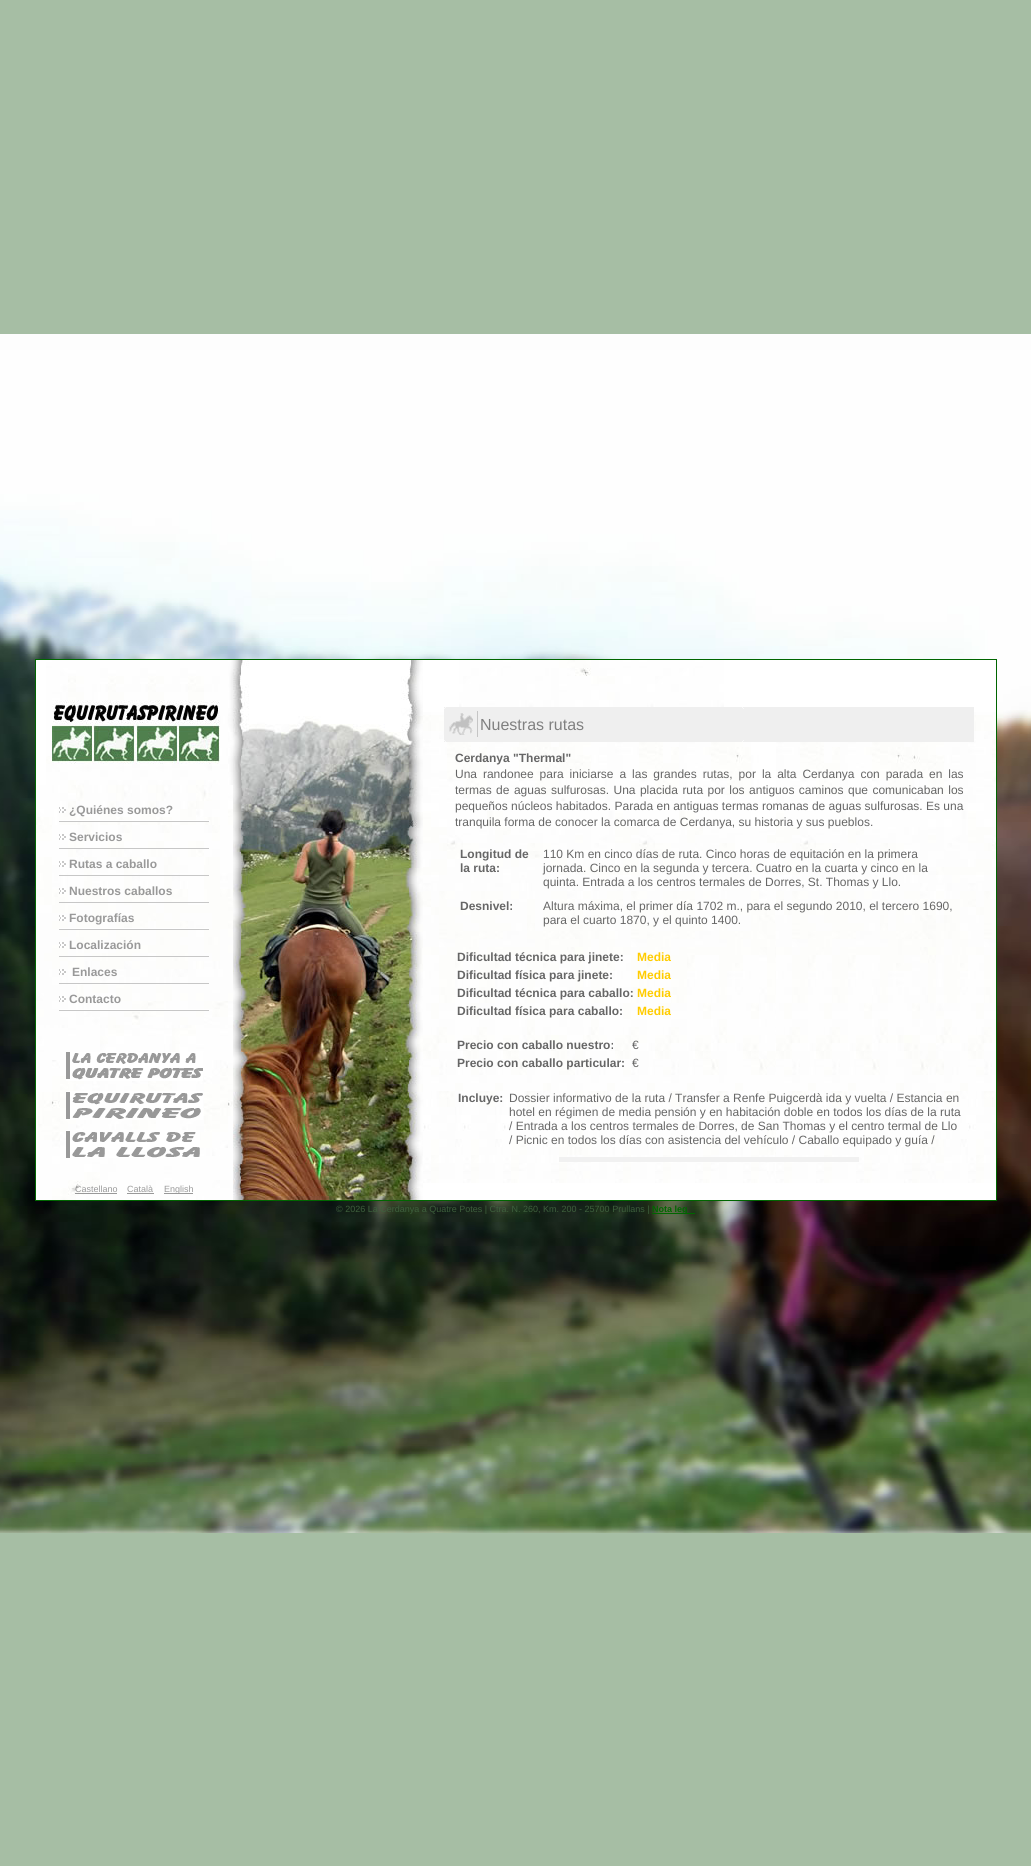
#include <cairo/cairo.h>
#include <math.h>
#include <stddef.h>

static cairo_t *cr;

static void use_color(int r, int g, int b) {
  cairo_set_source_rgb(cr, r / 255.0, g / 255.0, b / 255.0);
}

static void text(double x, double y, const char *s, const char *family, double size, int italic, int bold, int r, int g, int b) {
  cairo_select_font_face(cr, family, italic ? CAIRO_FONT_SLANT_ITALIC : CAIRO_FONT_SLANT_NORMAL,
    bold ? CAIRO_FONT_WEIGHT_BOLD : CAIRO_FONT_WEIGHT_NORMAL);
  cairo_set_font_size(cr, size);
  use_color(r, g, b);
  cairo_move_to(cr, x, y);
  cairo_show_text(cr, s);
}

static void spaced_text(double x, double y, const char *s, double letter, double word) {
  cairo_move_to(cr, x, y);
  while (*s) {
    char ch[5] = {0};
    int n = 0;
    do ch[n++] = *s++; while ((*s & 0xC0) == 0x80);
    cairo_show_text(cr, ch);
    cairo_rel_move_to(cr, letter + word * (*ch == ' '), 0);
  }
}

static void box(double x, double y, double w, double h, int r, int g, int b) {
  use_color(r, g, b);
  cairo_rectangle(cr, x, y, w, h);
  cairo_fill(cr);
}

static void picture(const char *path, double x, double y, double w, double h) {
  cairo_surface_t *image = cairo_image_surface_create_from_png(path);
  cairo_save(cr);
  cairo_set_source_surface(cr, image, x, y);
  cairo_rectangle(cr, x, y, w, h);
  cairo_fill(cr);
  cairo_restore(cr);
  cairo_surface_destroy(image);
}

static void draw(void) {
  use_color(166, 190, 164);
  cairo_paint(cr);
  picture("img_01.png", 0, 334, 1031, 1199);
  use_color(255, 255, 255);
  cairo_rectangle(cr, 35.5, 659.5, 961, 541);
  cairo_fill_preserve(cr);
  use_color(0, 102, 0);
  cairo_set_line_width(cr, 1);
  cairo_stroke(cr);
  picture("img_02.png", 46, 660, 187, 125);
  picture("img_03.png", 36, 785, 197, 243);
  picture("img_04.png", 59, 807, 7, 6);
  picture("img_05.png", 59, 820, 151, 2);
  picture("img_04.png", 59, 834, 7, 6);
  box(59, 848, 150, 1, 199, 199, 199);
  picture("img_04.png", 59, 861, 7, 6);
  box(59, 875, 150, 1, 199, 199, 199);
  picture("img_04.png", 59, 888, 7, 6);
  box(59, 902, 150, 1, 199, 199, 199);
  picture("img_04.png", 59, 915, 7, 6);
  picture("img_06.png", 59, 928, 150, 2);
  picture("img_04.png", 59, 942, 7, 6);
  box(59, 956, 150, 1, 199, 199, 199);
  picture("img_04.png", 59, 969, 7, 6);
  box(59, 983, 150, 1, 199, 199, 199);
  picture("img_04.png", 59, 996, 7, 6);
  picture("img_06.png", 59, 1009, 150, 2);
  picture("img_07.png", 38, 1028, 195, 172);
  picture("img_08.png", 66, 1052, 137, 29);
  picture("img_09.png", 66, 1091, 137, 29);
  picture("img_10.png", 66, 1130, 134, 28);
  box(75, 1193, 42, 1, 153, 153, 153);
  box(127, 1193, 27, 1, 153, 153, 153);
  box(164, 1193, 29, 1, 153, 153, 153);
  picture("img_11.png", 233, 660, 190, 540);
  picture("img_12.png", 459, 660, 265, 47);
  picture("img_13.png", 423, 712, 573, 471);
  box(444, 707, 530, 35, 239, 239, 239);
  picture("img_14.png", 444, 707, 300, 35);
  box(559, 1157, 300, 5, 241, 241, 241);
  box(652, 1213, 43, 1, 0, 102, 0);
  text(69, 814, "¿Quiénes somos?", "Liberation Sans", 12, 0, 1, 153, 153, 153);
  text(69, 841, "Servicios", "Liberation Sans", 12, 0, 1, 153, 153, 153);
  text(69, 868, "Rutas a caballo", "Liberation Sans", 12, 0, 1, 153, 153, 153);
  text(69, 895, "Nuestros caballos", "Liberation Sans", 12, 0, 1, 153, 153, 153);
  text(69, 922, "Fotografías", "Liberation Sans", 12, 0, 1, 153, 153, 153);
  text(69, 949, "Localización", "Liberation Sans", 12, 0, 1, 153, 153, 153);
  text(72, 976, "Enlaces", "Liberation Sans", 12, 0, 1, 153, 153, 153);
  text(69, 1003, "Contacto", "Liberation Sans", 12, 0, 1, 153, 153, 153);
  text(75, 1192, "Castellano", "Liberation Sans", 9, 0, 0, 153, 153, 153);
  text(127, 1192, "Català", "Liberation Sans", 9, 0, 0, 153, 153, 153);
  text(164, 1192, "English", "Liberation Sans", 9, 0, 0, 153, 153, 153);
  text(480, 730, "Nuestras rutas", "Liberation Sans", 16, 0, 0, 128, 128, 128);
  text(455, 762, "Cerdanya \"Thermal\"", "Liberation Sans", 12, 0, 1, 102, 102, 102);
  cairo_select_font_face(cr, "Liberation Sans", CAIRO_FONT_SLANT_NORMAL, CAIRO_FONT_WEIGHT_NORMAL);
  spaced_text(455, 778, "Una randonee para iniciarse a las grandes rutas, por la alta Cerdanya con parada en las", 0, 2.6);
  spaced_text(455, 794, "termas de aguas sulfurosas. Una placida ruta por los antiguos caminos que comunicaban los", 0, 1.1);
  text(455, 810, "pequeños núcleos habitados. Parada en antiguas termas romanas de aguas sulfurosas. Es una", "Liberation Sans", 12, 0, 0, 102, 102, 102);
  text(455, 826, "tranquila forma de conocer la comarca de Cerdanya, su historia y sus pueblos.", "Liberation Sans", 12, 0, 0, 102, 102, 102);
  text(460, 858, "Longitud de", "Liberation Sans", 12, 0, 1, 102, 102, 102);
  text(460, 872, "la ruta:", "Liberation Sans", 12, 0, 1, 102, 102, 102);
  text(543, 858, "110 Km en cinco días de ruta. Cinco horas de equitación en la primera", "Liberation Sans", 12, 0, 0, 102, 102, 102);
  text(543, 872, "jornada. Cinco en la segunda y tercera. Cuatro en la cuarta y cinco en la", "Liberation Sans", 12, 0, 0, 102, 102, 102);
  text(543, 886, "quinta. Entrada a los centros termales de Dorres, St. Thomas y Llo.", "Liberation Sans", 12, 0, 0, 102, 102, 102);
  text(460, 910, "Desnivel:", "Liberation Sans", 12, 0, 1, 102, 102, 102);
  text(543, 910, "Altura máxima, el primer día 1702 m., para el segundo 2010, el tercero 1690,", "Liberation Sans", 12, 0, 0, 102, 102, 102);
  text(543, 924, "para el cuarto 1870, y el quinto 1400.", "Liberation Sans", 12, 0, 0, 102, 102, 102);
  text(457, 961, "Dificultad técnica para jinete:", "Liberation Sans", 12, 0, 1, 102, 102, 102);
  text(637, 961, "Media", "Liberation Sans", 12, 0, 1, 255, 204, 0);
  text(457, 979, "Dificultad física para jinete:", "Liberation Sans", 12, 0, 1, 102, 102, 102);
  text(637, 979, "Media", "Liberation Sans", 12, 0, 1, 255, 204, 0);
  text(457, 997, "Dificultad técnica para caballo:", "Liberation Sans", 12, 0, 1, 102, 102, 102);
  text(637, 997, "Media", "Liberation Sans", 12, 0, 1, 255, 204, 0);
  text(457, 1015, "Dificultad física para caballo:", "Liberation Sans", 12, 0, 1, 102, 102, 102);
  text(637, 1015, "Media", "Liberation Sans", 12, 0, 1, 255, 204, 0);
  text(457, 1049, "Precio con caballo nuestro:", "Liberation Sans", 12, 0, 1, 102, 102, 102);
  text(632, 1049, "€", "Liberation Sans", 12, 0, 0, 102, 102, 102);
  text(457, 1067, "Precio con caballo particular:", "Liberation Sans", 12, 0, 1, 102, 102, 102);
  text(632, 1067, "€", "Liberation Sans", 12, 0, 0, 102, 102, 102);
  text(458, 1102, "Incluye:", "Liberation Sans", 12, 0, 1, 102, 102, 102);
  text(509, 1102, "Dossier informativo de la ruta / Transfer a Renfe Puigcerdà ida y vuelta / Estancia en", "Liberation Sans", 12, 0, 0, 102, 102, 102);
  text(509, 1116, "hotel en régimen de media pensión y en habitación doble en todos los días de la ruta", "Liberation Sans", 12, 0, 0, 102, 102, 102);
  text(509, 1130, "/ Entrada a los centros termales de Dorres, de San Thomas y el centro termal de Llo", "Liberation Sans", 12, 0, 0, 102, 102, 102);
  text(509, 1144, "/ Picnic en todos los días con asistencia del vehículo / Caballo equipado y guía /", "Liberation Sans", 12, 0, 0, 102, 102, 102);
  text(336, 1212, "© 2026 La Cerdanya a Quatre Potes | Ctra. N. 260, Km. 200 - 25700 Prullans |", "Liberation Sans", 9, 0, 0, 61, 95, 60);
  text(652, 1212, "Nota leg", "Liberation Sans", 9, 0, 1, 0, 102, 0);
}

int main(void) {
  cairo_surface_t *surface = cairo_image_surface_create(CAIRO_FORMAT_RGB24, 1031, 1866);
  cr = cairo_create(surface);
  cairo_font_options_t *options = cairo_font_options_create();
  cairo_font_options_set_hint_metrics(options, CAIRO_HINT_METRICS_OFF);
  cairo_font_options_set_hint_style(options, CAIRO_HINT_STYLE_NONE);
  cairo_set_font_options(cr, options);
  cairo_set_miter_limit(cr, 4);
  draw();
  cairo_surface_write_to_png(surface, "out.png");
  cairo_font_options_destroy(options);
  cairo_destroy(cr);
  cairo_surface_destroy(surface);
  return 0;
}
